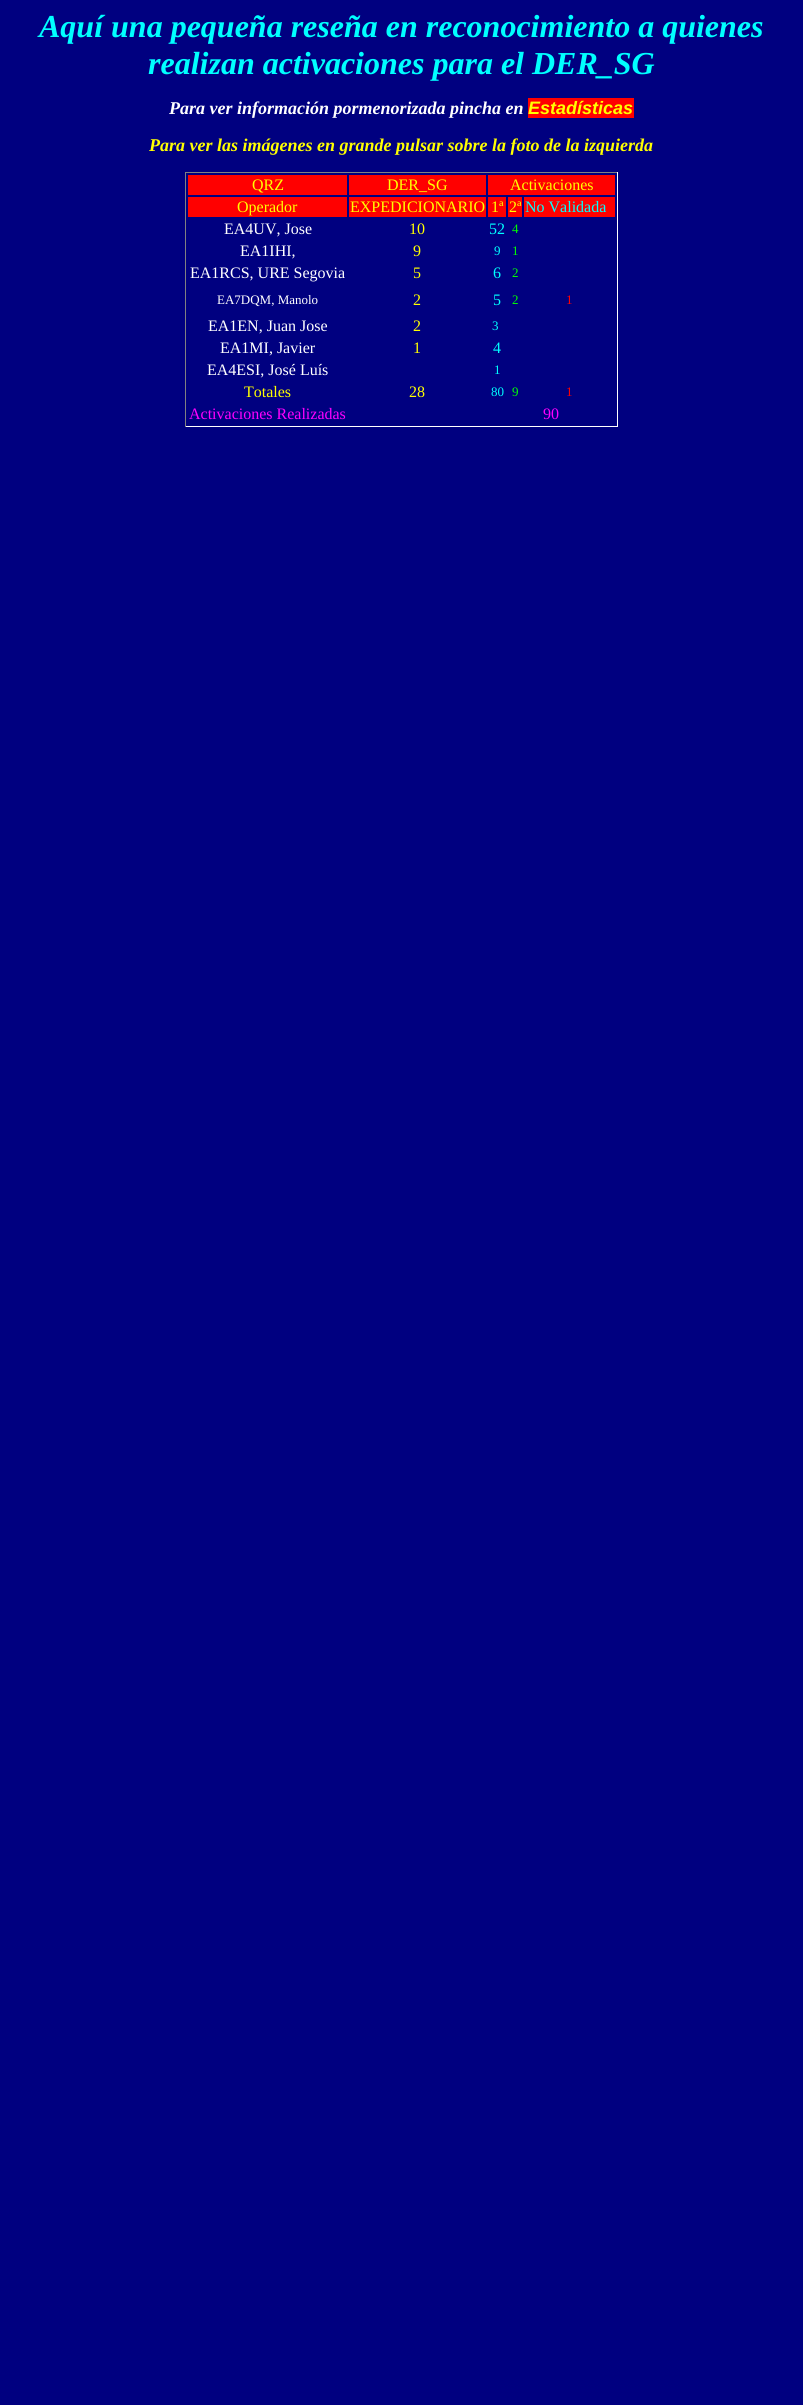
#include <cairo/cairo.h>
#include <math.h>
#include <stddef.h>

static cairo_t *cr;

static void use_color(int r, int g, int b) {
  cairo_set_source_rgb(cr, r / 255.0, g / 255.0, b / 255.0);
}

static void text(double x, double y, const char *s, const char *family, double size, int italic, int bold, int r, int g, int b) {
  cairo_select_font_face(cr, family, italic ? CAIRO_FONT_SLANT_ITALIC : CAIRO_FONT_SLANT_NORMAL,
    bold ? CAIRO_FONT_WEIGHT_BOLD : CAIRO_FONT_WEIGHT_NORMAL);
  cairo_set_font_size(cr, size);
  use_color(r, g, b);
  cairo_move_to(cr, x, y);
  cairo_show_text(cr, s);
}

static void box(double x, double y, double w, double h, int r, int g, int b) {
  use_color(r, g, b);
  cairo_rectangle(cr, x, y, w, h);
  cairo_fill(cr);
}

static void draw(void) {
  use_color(0, 0, 128);
  cairo_paint(cr);
  box(528, 98, 106, 20, 255, 0, 0);
  box(185, 172, 433, 1, 128, 128, 128);
  box(617, 172, 1, 255, 255, 255, 255);
  box(185, 426, 433, 1, 255, 255, 255);
  box(185, 172, 1, 255, 128, 128, 128);
  box(188, 175, 159, 20, 255, 0, 0);
  box(349, 175, 137, 20, 255, 0, 0);
  box(488, 175, 127, 20, 255, 0, 0);
  box(188, 197, 159, 20, 255, 0, 0);
  box(349, 197, 137, 20, 255, 0, 0);
  box(488, 197, 18, 20, 255, 0, 0);
  box(508, 197, 14, 20, 255, 0, 0);
  box(524, 197, 91, 20, 255, 0, 0);
  text(39, 37, "Aquí una pequeña reseña en reconocimiento a quienes", "Liberation Serif", 32, 1, 1, 0, 255, 255);
  text(148, 74, "realizan activaciones para el DER_SG", "Liberation Serif", 32, 1, 1, 0, 255, 255);
  text(169, 114, "Para ver información pormenorizada pincha en", "Liberation Serif", 18, 1, 1, 255, 255, 255);
  text(528, 114, "Estadísticas", "Liberation Sans", 18, 1, 1, 255, 255, 0);
  text(149, 151, "Para ver las imágenes en grande pulsar sobre la foto de la izquierda", "Liberation Serif", 18, 1, 1, 255, 255, 0);
  text(252, 190, "QRZ", "Liberation Serif", 16, 0, 0, 255, 255, 0);
  text(387, 190, "DER_SG", "Liberation Serif", 16, 0, 0, 255, 255, 0);
  text(510, 190, "Activaciones", "Liberation Serif", 16, 0, 0, 255, 255, 0);
  text(237, 212, "Operador", "Liberation Serif", 16, 0, 0, 255, 255, 0);
  text(350, 212, "EXPEDICIONARIO", "Liberation Serif", 16, 0, 0, 255, 255, 0);
  text(491, 212, "1ª", "Liberation Serif", 16, 0, 0, 255, 255, 0);
  text(509, 212, "2ª", "Liberation Serif", 16, 0, 0, 255, 255, 0);
  text(525, 212, "No Validada", "Liberation Serif", 16, 0, 0, 0, 255, 255);
  text(224, 234, "EA4UV, Jose", "Liberation Serif", 16, 0, 0, 255, 255, 255);
  text(409, 234, "10", "Liberation Serif", 16, 0, 0, 255, 255, 0);
  text(489, 234, "52", "Liberation Serif", 16, 0, 0, 0, 255, 255);
  text(512, 233, "4", "Liberation Serif", 13, 0, 0, 0, 255, 0);
  text(240, 256, "EA1IHI,", "Liberation Serif", 16, 0, 0, 255, 255, 255);
  text(413, 256, "9", "Liberation Serif", 16, 0, 0, 255, 255, 0);
  text(494, 255, "9", "Liberation Serif", 13, 0, 0, 0, 255, 255);
  text(512, 255, "1", "Liberation Serif", 13, 0, 0, 0, 255, 0);
  text(190, 278, "EA1RCS, URE Segovia", "Liberation Serif", 16, 0, 0, 255, 255, 255);
  text(413, 278, "5", "Liberation Serif", 16, 0, 0, 255, 255, 0);
  text(493, 278, "6", "Liberation Serif", 16, 0, 0, 0, 255, 255);
  text(512, 277, "2", "Liberation Serif", 13, 0, 0, 0, 255, 0);
  text(217, 304, "EA7DQM, Manolo", "Liberation Serif", 13, 0, 0, 255, 255, 255);
  text(413, 305, "2", "Liberation Serif", 16, 0, 0, 255, 255, 0);
  text(493, 305, "5", "Liberation Serif", 16, 0, 0, 0, 255, 255);
  text(512, 304, "2", "Liberation Serif", 13, 0, 0, 0, 255, 0);
  text(566, 304, "1", "Liberation Serif", 13, 0, 0, 255, 0, 0);
  text(208, 331, "EA1EN, Juan Jose", "Liberation Serif", 16, 0, 0, 255, 255, 255);
  text(413, 331, "2", "Liberation Serif", 16, 0, 0, 255, 255, 0);
  text(492, 330, "3", "Liberation Serif", 13, 0, 0, 0, 255, 255);
  text(220, 353, "EA1MI, Javier", "Liberation Serif", 16, 0, 0, 255, 255, 255);
  text(413, 353, "1", "Liberation Serif", 16, 0, 0, 255, 255, 0);
  text(493, 353, "4", "Liberation Serif", 16, 0, 0, 0, 255, 255);
  text(207, 375, "EA4ESI, José Luís", "Liberation Serif", 16, 0, 0, 255, 255, 255);
  text(494, 374, "1", "Liberation Serif", 13, 0, 0, 0, 255, 255);
  text(244, 397, "Totales", "Liberation Serif", 16, 0, 0, 255, 255, 0);
  text(409, 397, "28", "Liberation Serif", 16, 0, 0, 255, 255, 0);
  text(491, 396, "80", "Liberation Serif", 13, 0, 0, 0, 255, 255);
  text(512, 396, "9", "Liberation Serif", 13, 0, 0, 0, 255, 0);
  text(566, 396, "1", "Liberation Serif", 13, 0, 0, 255, 0, 0);
  text(189, 419, "Activaciones Realizadas", "Liberation Serif", 16, 0, 0, 255, 0, 255);
  text(543, 419, "90", "Liberation Serif", 16, 0, 0, 255, 0, 255);
}

int main(void) {
  cairo_surface_t *surface = cairo_image_surface_create(CAIRO_FORMAT_RGB24, 803, 2405);
  cr = cairo_create(surface);
  cairo_font_options_t *options = cairo_font_options_create();
  cairo_font_options_set_hint_metrics(options, CAIRO_HINT_METRICS_OFF);
  cairo_font_options_set_hint_style(options, CAIRO_HINT_STYLE_NONE);
  cairo_set_font_options(cr, options);
  cairo_set_miter_limit(cr, 4);
  draw();
  cairo_surface_write_to_png(surface, "out.png");
  cairo_font_options_destroy(options);
  cairo_destroy(cr);
  cairo_surface_destroy(surface);
  return 0;
}
